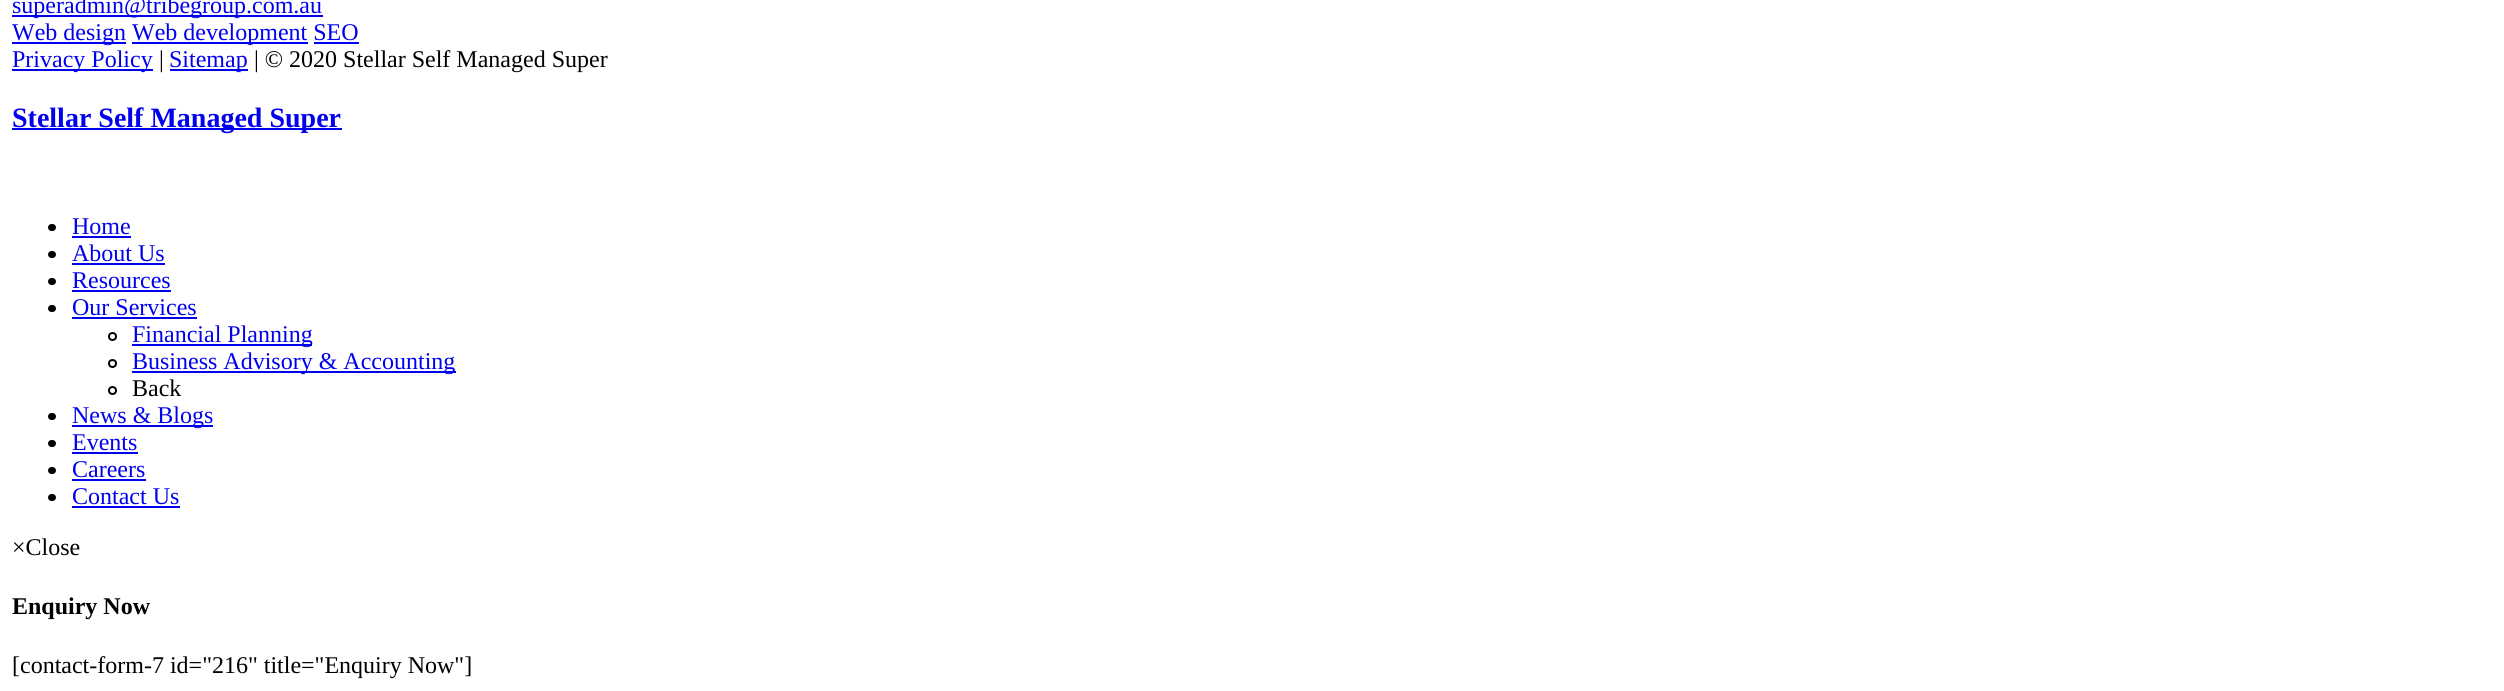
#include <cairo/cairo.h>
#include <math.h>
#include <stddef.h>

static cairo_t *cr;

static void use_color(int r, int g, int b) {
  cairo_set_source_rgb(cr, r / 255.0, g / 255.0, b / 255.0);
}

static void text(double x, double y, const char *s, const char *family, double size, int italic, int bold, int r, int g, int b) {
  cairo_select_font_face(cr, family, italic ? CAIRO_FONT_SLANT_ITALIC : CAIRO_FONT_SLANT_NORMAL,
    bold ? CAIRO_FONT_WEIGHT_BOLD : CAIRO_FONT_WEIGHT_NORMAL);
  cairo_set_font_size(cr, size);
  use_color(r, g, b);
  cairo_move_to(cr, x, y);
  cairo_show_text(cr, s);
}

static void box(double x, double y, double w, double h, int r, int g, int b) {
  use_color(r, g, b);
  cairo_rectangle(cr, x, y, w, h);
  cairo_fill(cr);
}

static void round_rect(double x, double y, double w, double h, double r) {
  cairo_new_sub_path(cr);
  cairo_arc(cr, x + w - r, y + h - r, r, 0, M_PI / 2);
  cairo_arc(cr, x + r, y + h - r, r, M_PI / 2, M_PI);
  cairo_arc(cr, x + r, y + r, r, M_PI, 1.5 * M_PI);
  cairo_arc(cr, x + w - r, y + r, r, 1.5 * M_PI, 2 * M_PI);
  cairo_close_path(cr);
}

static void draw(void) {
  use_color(255, 255, 255);
  cairo_paint(cr);
  box(12, 15, 311, 2, 0, 0, 238);
  box(12, 42, 114, 2, 0, 0, 238);
  box(132, 42, 176, 2, 0, 0, 238);
  box(314, 42, 45, 2, 0, 0, 238);
  box(12, 69, 141, 2, 0, 0, 238);
  box(170, 69, 78, 2, 0, 0, 238);
  box(12, 128, 330, 2, 0, 0, 238);
  use_color(0, 0, 0);
  round_rect(48, 224, 8, 7, 3.5);
  cairo_fill(cr);
  box(72, 236, 59, 2, 0, 0, 238);
  use_color(0, 0, 0);
  round_rect(48, 251, 8, 7, 3.5);
  cairo_fill(cr);
  box(72, 263, 93, 2, 0, 0, 238);
  use_color(0, 0, 0);
  round_rect(48, 278, 8, 7, 3.5);
  cairo_fill(cr);
  box(72, 290, 99, 2, 0, 0, 238);
  use_color(0, 0, 0);
  round_rect(48, 305, 8, 7, 3.5);
  cairo_fill(cr);
  box(72, 317, 125, 2, 0, 0, 238);
  cairo_arc(cr, 112.5, 336.5, 3.5, 0, 2 * M_PI);
  use_color(0, 0, 0);
  cairo_stroke(cr);
  box(132, 344, 180, 2, 0, 0, 238);
  cairo_arc(cr, 112.5, 363.5, 3.5, 0, 2 * M_PI);
  use_color(0, 0, 0);
  cairo_stroke(cr);
  box(132, 371, 324, 2, 0, 0, 238);
  cairo_arc(cr, 112.5, 390.5, 3.5, 0, 2 * M_PI);
  use_color(0, 0, 0);
  cairo_stroke(cr);
  round_rect(48, 413, 8, 7, 3.5);
  cairo_fill(cr);
  box(72, 425, 141, 2, 0, 0, 238);
  use_color(0, 0, 0);
  round_rect(48, 440, 8, 7, 3.5);
  cairo_fill(cr);
  box(72, 452, 66, 2, 0, 0, 238);
  use_color(0, 0, 0);
  round_rect(48, 467, 8, 7, 3.5);
  cairo_fill(cr);
  box(72, 479, 74, 2, 0, 0, 238);
  use_color(0, 0, 0);
  round_rect(48, 494, 8, 7, 3.5);
  cairo_fill(cr);
  box(72, 506, 108, 2, 0, 0, 238);
  text(12, 13, "superadmin@tribegroup.com.au", "Liberation Serif", 24, 0, 0, 0, 0, 238);
  text(12, 40, "Web design", "Liberation Serif", 24, 0, 0, 0, 0, 238);
  text(132, 40, "Web development SEO", "Liberation Serif", 24, 0, 0, 0, 0, 238);
  text(12, 67, "Privacy Policy", "Liberation Serif", 24, 0, 0, 0, 0, 238);
  text(159, 67, "|", "Liberation Serif", 24, 0, 0, 0, 0, 0);
  text(169, 67, "Sitemap", "Liberation Serif", 24, 0, 0, 0, 0, 238);
  text(254, 67, "| © 2020 Stellar Self Managed Super", "Liberation Serif", 24, 0, 0, 0, 0, 0);
  text(12, 127, "Stellar Self Managed Super", "Liberation Serif", 28, 0, 1, 0, 0, 238);
  text(72, 234, "Home", "Liberation Serif", 24, 0, 0, 0, 0, 238);
  text(72, 261, "About Us", "Liberation Serif", 24, 0, 0, 0, 0, 238);
  text(72, 288, "Resources", "Liberation Serif", 24, 0, 0, 0, 0, 238);
  text(72, 315, "Our Services", "Liberation Serif", 24, 0, 0, 0, 0, 238);
  text(132, 342, "Financial Planning", "Liberation Serif", 24, 0, 0, 0, 0, 238);
  text(132, 369, "Business Advisory & Accounting", "Liberation Serif", 24, 0, 0, 0, 0, 238);
  text(132, 396, "Back", "Liberation Serif", 24, 0, 0, 0, 0, 0);
  text(72, 423, "News & Blogs", "Liberation Serif", 24, 0, 0, 0, 0, 238);
  text(72, 450, "Events", "Liberation Serif", 24, 0, 0, 0, 0, 238);
  text(72, 477, "Careers", "Liberation Serif", 24, 0, 0, 0, 0, 238);
  text(72, 504, "Contact Us", "Liberation Serif", 24, 0, 0, 0, 0, 238);
  text(12, 555, "×Close", "Liberation Serif", 24, 0, 0, 0, 0, 0);
  text(12, 614, "Enquiry Now", "Liberation Serif", 24, 0, 1, 0, 0, 0);
  text(12, 673, "[contact-form-7 id=\"216\" title=\"Enquiry Now\"]", "Liberation Serif", 24, 0, 0, 0, 0, 0);
}

int main(void) {
  cairo_surface_t *surface = cairo_image_surface_create(CAIRO_FORMAT_RGB24, 2504, 691);
  cr = cairo_create(surface);
  cairo_font_options_t *options = cairo_font_options_create();
  cairo_font_options_set_hint_metrics(options, CAIRO_HINT_METRICS_OFF);
  cairo_font_options_set_hint_style(options, CAIRO_HINT_STYLE_NONE);
  cairo_set_font_options(cr, options);
  cairo_set_miter_limit(cr, 4);
  draw();
  cairo_surface_write_to_png(surface, "out.png");
  cairo_font_options_destroy(options);
  cairo_destroy(cr);
  cairo_surface_destroy(surface);
  return 0;
}
